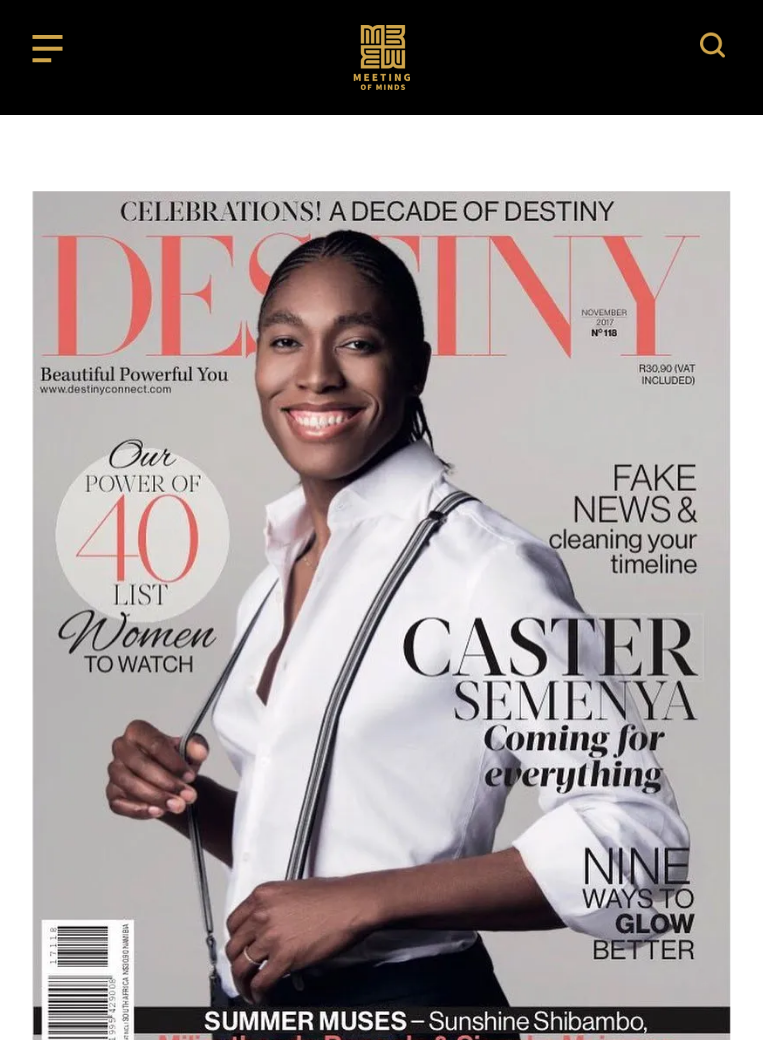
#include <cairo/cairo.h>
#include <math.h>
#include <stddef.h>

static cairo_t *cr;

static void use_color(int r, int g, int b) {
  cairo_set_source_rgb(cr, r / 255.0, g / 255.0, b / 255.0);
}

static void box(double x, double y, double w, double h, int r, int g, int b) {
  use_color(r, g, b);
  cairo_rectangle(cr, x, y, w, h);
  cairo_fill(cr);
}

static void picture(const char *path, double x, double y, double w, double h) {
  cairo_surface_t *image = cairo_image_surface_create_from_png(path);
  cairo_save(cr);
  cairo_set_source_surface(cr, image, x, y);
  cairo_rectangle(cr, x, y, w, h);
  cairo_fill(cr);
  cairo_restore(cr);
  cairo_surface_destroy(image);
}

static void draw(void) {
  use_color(255, 255, 255);
  cairo_paint(cr);
  box(0, 0, 763, 115, 0, 0, 0);
  picture("img_01.png", 32, 35, 31, 28);
  picture("img_02.png", 353, 25, 57, 65);
  picture("img_03.png", 700, 32, 25, 26);
  picture("img_04.png", 32, 191, 699, 849);
}

int main(void) {
  cairo_surface_t *surface = cairo_image_surface_create(CAIRO_FORMAT_RGB24, 763, 1040);
  cr = cairo_create(surface);
  cairo_font_options_t *options = cairo_font_options_create();
  cairo_font_options_set_hint_metrics(options, CAIRO_HINT_METRICS_OFF);
  cairo_font_options_set_hint_style(options, CAIRO_HINT_STYLE_NONE);
  cairo_set_font_options(cr, options);
  cairo_set_miter_limit(cr, 4);
  draw();
  cairo_surface_write_to_png(surface, "out.png");
  cairo_font_options_destroy(options);
  cairo_destroy(cr);
  cairo_surface_destroy(surface);
  return 0;
}
